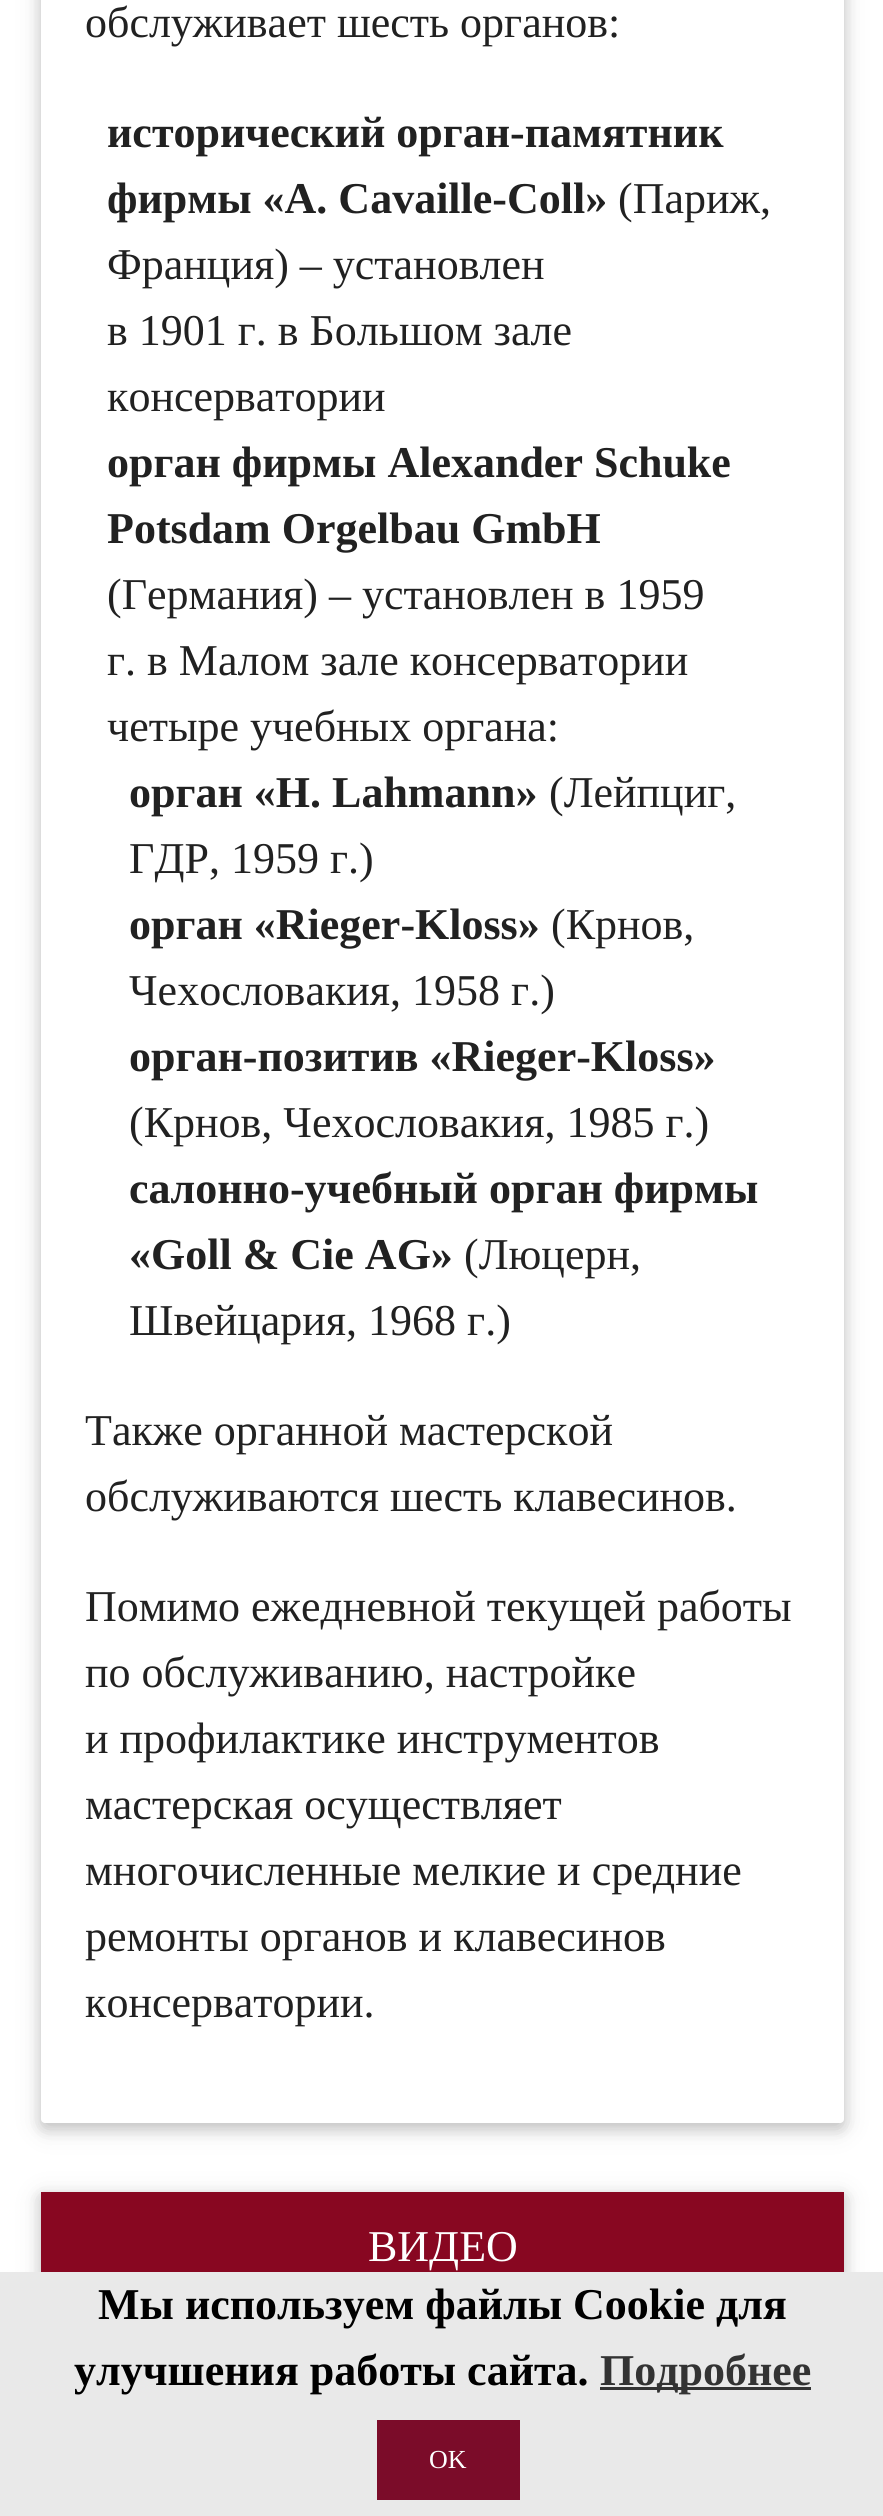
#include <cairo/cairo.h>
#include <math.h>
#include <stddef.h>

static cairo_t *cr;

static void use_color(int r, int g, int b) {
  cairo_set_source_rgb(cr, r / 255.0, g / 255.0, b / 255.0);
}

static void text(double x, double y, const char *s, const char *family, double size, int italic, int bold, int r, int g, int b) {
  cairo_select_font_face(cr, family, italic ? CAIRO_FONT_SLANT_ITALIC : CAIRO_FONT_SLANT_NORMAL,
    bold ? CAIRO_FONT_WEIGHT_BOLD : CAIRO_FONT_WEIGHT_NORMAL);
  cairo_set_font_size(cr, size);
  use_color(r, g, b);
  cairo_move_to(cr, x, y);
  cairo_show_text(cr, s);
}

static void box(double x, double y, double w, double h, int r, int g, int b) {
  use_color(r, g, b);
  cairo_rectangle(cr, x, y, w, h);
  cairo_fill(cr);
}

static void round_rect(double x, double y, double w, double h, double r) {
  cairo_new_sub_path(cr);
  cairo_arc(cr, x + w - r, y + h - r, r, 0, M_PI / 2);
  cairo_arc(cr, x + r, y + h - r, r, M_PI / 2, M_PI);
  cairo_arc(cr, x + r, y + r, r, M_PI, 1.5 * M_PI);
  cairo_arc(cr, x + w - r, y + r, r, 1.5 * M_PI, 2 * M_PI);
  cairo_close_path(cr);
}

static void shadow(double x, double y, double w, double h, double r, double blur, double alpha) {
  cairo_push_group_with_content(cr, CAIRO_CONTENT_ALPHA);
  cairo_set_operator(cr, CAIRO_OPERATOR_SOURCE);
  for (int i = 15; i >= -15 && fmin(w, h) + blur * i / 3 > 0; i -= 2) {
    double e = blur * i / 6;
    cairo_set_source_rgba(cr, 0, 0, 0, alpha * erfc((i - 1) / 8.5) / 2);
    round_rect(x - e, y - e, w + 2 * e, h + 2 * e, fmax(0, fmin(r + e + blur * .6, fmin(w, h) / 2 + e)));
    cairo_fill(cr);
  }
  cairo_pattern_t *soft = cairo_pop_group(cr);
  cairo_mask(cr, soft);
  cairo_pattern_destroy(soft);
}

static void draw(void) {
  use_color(255, 255, 255);
  cairo_paint(cr);
  use_color(0, 0, 0);
  shadow(41, -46, 803, 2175, 4, 14, 0.12);
  shadow(41, -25, 803, 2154, 4, 7, 0.16);
  use_color(255, 255, 255);
  round_rect(41, -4, 803, 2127, 4);
  cairo_fill(cr);
  use_color(0, 0, 0);
  shadow(41, 2197, 803, 102, 0, 14, 0.12);
  shadow(41, 2197, 803, 102, 0, 7, 0.16);
  box(41, 2192, 803, 80, 136, 7, 33);
  box(0, 2272, 883, 244, 233, 233, 233);
  box(600, 2387, 211, 3, 51, 51, 51);
  box(377, 2420, 143, 80, 123, 12, 41);
  text(85, 37, "обслуживает шесть органов:", "Liberation Serif", 44, 0, 0, 33, 33, 33);
  text(107, 147, "исторический орган-памятник", "Liberation Serif", 44, 0, 1, 33, 33, 33);
  text(107, 213, "фирмы «А. Cavaille-Coll»", "Liberation Serif", 44, 0, 1, 33, 33, 33);
  text(618, 213, "(Париж,", "Liberation Serif", 44, 0, 0, 33, 33, 33);
  text(107, 279, "Франция) – установлен", "Liberation Serif", 44, 0, 0, 33, 33, 33);
  text(107, 345, "в 1901 г. в Большом зале", "Liberation Serif", 44, 0, 0, 33, 33, 33);
  text(107, 411, "консерватории", "Liberation Serif", 44, 0, 0, 33, 33, 33);
  text(107, 477, "орган фирмы Alexander Schuke", "Liberation Serif", 44, 0, 1, 33, 33, 33);
  text(107, 543, "Potsdam Orgelbau GmbH", "Liberation Serif", 44, 0, 1, 33, 33, 33);
  text(107, 609, "(Германия) – установлен в 1959", "Liberation Serif", 44, 0, 0, 33, 33, 33);
  text(107, 675, "г. в Малом зале консерватории", "Liberation Serif", 44, 0, 0, 33, 33, 33);
  text(107, 741, "четыре учебных органа:", "Liberation Serif", 44, 0, 0, 33, 33, 33);
  text(129, 807, "орган «Н. Lahmann»", "Liberation Serif", 44, 0, 1, 33, 33, 33);
  text(549, 807, "(Лейпциг,", "Liberation Serif", 44, 0, 0, 33, 33, 33);
  text(129, 873, "ГДР, 1959 г.)", "Liberation Serif", 44, 0, 0, 33, 33, 33);
  text(129, 939, "орган «Rieger-Kloss»", "Liberation Serif", 44, 0, 1, 33, 33, 33);
  text(551, 939, "(Крнов,", "Liberation Serif", 44, 0, 0, 33, 33, 33);
  text(129, 1005, "Чехословакия, 1958 г.)", "Liberation Serif", 44, 0, 0, 33, 33, 33);
  text(129, 1071, "орган-позитив «Rieger-Kloss»", "Liberation Serif", 44, 0, 1, 33, 33, 33);
  text(129, 1137, "(Крнов, Чехословакия, 1985 г.)", "Liberation Serif", 44, 0, 0, 33, 33, 33);
  text(129, 1203, "салонно-учебный орган фирмы", "Liberation Serif", 44, 0, 1, 33, 33, 33);
  text(129, 1269, "«Goll & Cie AG»", "Liberation Serif", 44, 0, 1, 33, 33, 33);
  text(464, 1269, "(Люцерн,", "Liberation Serif", 44, 0, 0, 33, 33, 33);
  text(129, 1335, "Швейцария, 1968 г.)", "Liberation Serif", 44, 0, 0, 33, 33, 33);
  text(85, 1445, "Также органной мастерской", "Liberation Serif", 44, 0, 0, 33, 33, 33);
  text(85, 1511, "обслуживаются шесть клавесинов.", "Liberation Serif", 44, 0, 0, 33, 33, 33);
  text(85, 1621, "Помимо ежедневной текущей работы", "Liberation Serif", 44, 0, 0, 33, 33, 33);
  text(85, 1687, "по обслуживанию, настройке", "Liberation Serif", 44, 0, 0, 33, 33, 33);
  text(85, 1753, "и профилактике инструментов", "Liberation Serif", 44, 0, 0, 33, 33, 33);
  text(85, 1819, "мастерская осуществляет", "Liberation Serif", 44, 0, 0, 33, 33, 33);
  text(85, 1885, "многочисленные мелкие и средние", "Liberation Serif", 44, 0, 0, 33, 33, 33);
  text(85, 1951, "ремонты органов и клавесинов", "Liberation Serif", 44, 0, 0, 33, 33, 33);
  text(85, 2017, "консерватории.", "Liberation Serif", 44, 0, 0, 33, 33, 33);
  text(368, 2261, "ВИДЕО", "Liberation Serif", 44, 0, 0, 255, 255, 255);
  text(98, 2319, "Мы используем файлы Cookie для", "Liberation Serif", 44, 0, 1, 0, 0, 0);
  text(74, 2385, "улучшения работы сайта.", "Liberation Serif", 44, 0, 1, 0, 0, 0);
  text(600, 2385, "Подробнее", "Liberation Serif", 44, 0, 1, 51, 51, 51);
  text(429, 2468, "OK", "Liberation Serif", 26, 0, 0, 255, 255, 255);
}

int main(void) {
  cairo_surface_t *surface = cairo_image_surface_create(CAIRO_FORMAT_RGB24, 883, 2516);
  cr = cairo_create(surface);
  cairo_font_options_t *options = cairo_font_options_create();
  cairo_font_options_set_hint_metrics(options, CAIRO_HINT_METRICS_OFF);
  cairo_font_options_set_hint_style(options, CAIRO_HINT_STYLE_NONE);
  cairo_set_font_options(cr, options);
  cairo_set_miter_limit(cr, 4);
  draw();
  cairo_surface_write_to_png(surface, "out.png");
  cairo_font_options_destroy(options);
  cairo_destroy(cr);
  cairo_surface_destroy(surface);
  return 0;
}
